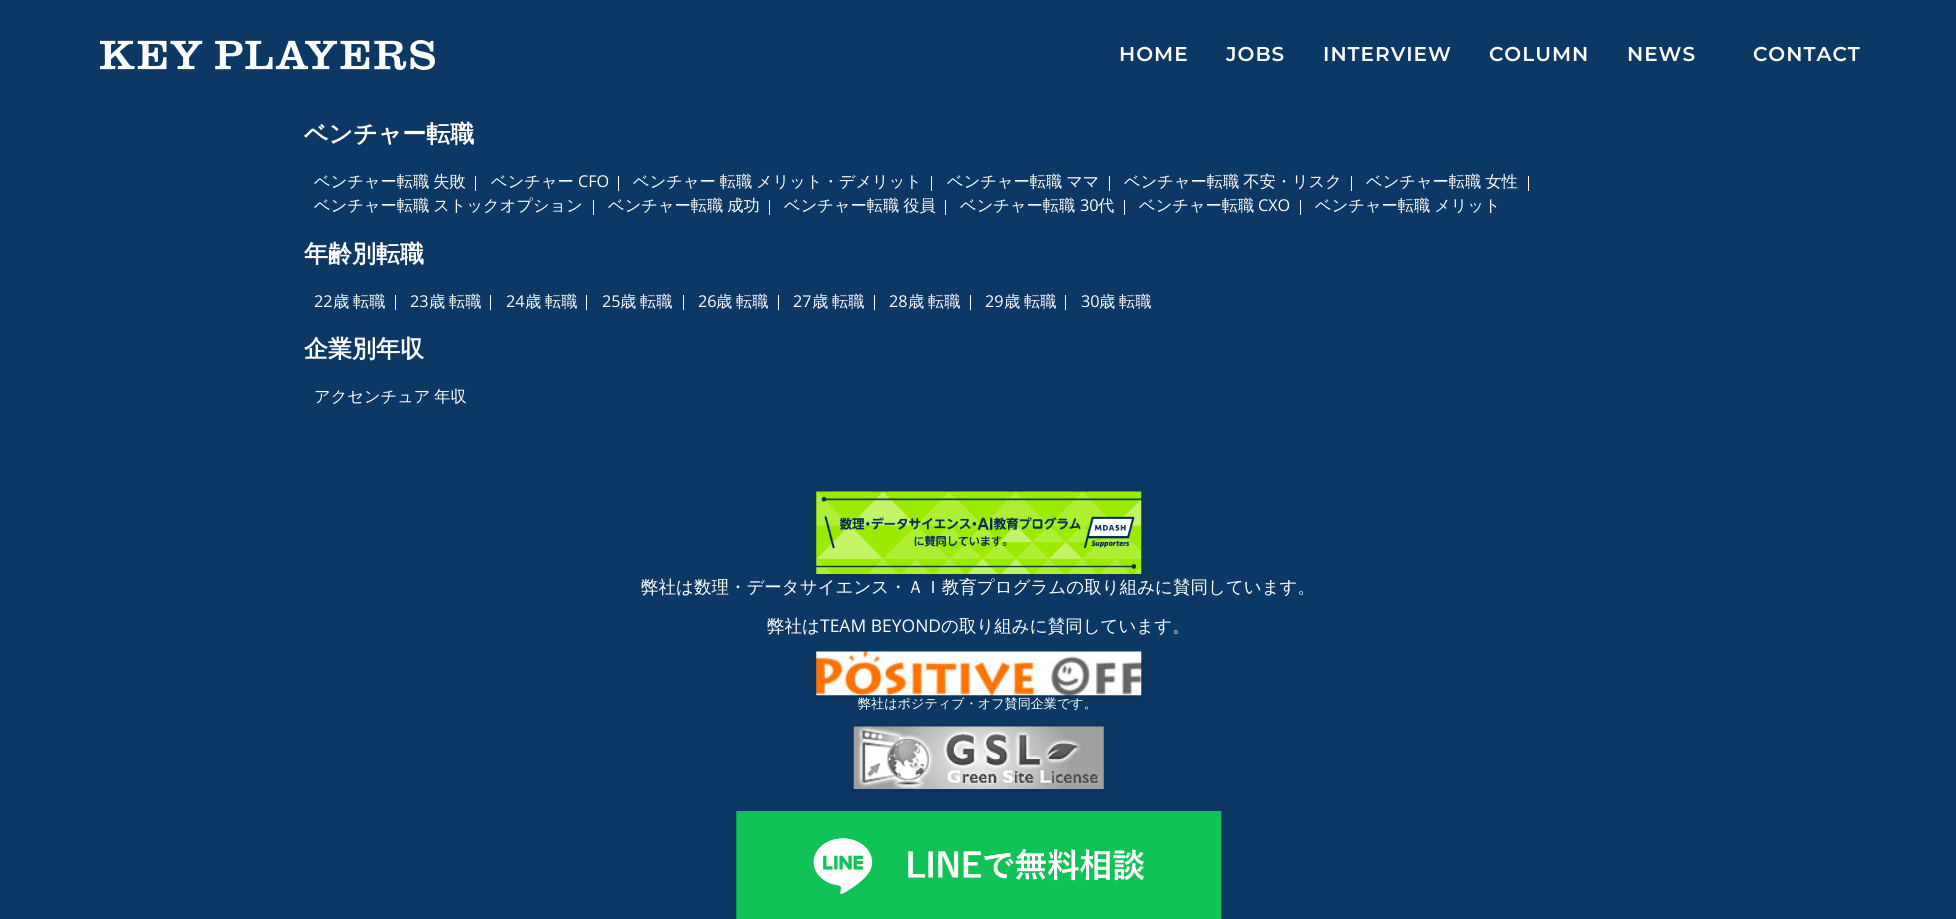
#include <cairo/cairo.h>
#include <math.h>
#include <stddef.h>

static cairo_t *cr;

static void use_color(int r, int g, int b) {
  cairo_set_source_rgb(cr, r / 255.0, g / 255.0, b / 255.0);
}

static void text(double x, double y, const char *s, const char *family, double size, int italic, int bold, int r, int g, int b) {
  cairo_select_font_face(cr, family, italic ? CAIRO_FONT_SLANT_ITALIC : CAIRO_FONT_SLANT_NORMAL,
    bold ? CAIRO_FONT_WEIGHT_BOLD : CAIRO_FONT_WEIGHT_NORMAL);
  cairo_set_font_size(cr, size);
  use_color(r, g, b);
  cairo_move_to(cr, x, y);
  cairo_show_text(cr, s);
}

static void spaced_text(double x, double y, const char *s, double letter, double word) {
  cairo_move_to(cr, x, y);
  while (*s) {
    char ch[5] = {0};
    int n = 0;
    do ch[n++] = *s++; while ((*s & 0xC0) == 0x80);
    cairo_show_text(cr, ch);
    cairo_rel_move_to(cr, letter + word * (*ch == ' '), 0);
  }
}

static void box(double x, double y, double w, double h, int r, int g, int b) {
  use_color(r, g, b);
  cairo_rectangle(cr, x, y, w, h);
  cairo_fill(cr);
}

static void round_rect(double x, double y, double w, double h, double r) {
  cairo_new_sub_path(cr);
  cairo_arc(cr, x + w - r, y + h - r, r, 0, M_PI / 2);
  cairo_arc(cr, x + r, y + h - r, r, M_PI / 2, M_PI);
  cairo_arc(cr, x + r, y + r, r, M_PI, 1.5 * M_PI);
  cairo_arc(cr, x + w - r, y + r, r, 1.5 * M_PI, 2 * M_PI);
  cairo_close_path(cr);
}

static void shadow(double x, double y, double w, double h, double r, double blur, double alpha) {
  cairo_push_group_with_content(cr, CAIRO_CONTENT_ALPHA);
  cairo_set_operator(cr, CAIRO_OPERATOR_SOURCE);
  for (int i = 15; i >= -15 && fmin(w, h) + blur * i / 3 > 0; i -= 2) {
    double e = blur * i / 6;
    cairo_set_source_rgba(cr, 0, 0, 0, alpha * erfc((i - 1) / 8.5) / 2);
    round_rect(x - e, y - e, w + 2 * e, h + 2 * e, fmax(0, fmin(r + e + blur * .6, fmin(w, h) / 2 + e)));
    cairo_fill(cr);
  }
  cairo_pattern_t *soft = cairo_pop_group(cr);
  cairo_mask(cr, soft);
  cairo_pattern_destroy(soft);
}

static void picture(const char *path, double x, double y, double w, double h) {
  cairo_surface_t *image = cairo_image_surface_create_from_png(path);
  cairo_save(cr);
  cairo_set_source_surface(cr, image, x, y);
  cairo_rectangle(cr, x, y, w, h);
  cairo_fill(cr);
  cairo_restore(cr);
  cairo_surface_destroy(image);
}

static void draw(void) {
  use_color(11, 56, 100);
  cairo_paint(cr);
  picture("img_01.png", 100, 40, 335, 30);
  box(475, 176, 1, 15, 255, 255, 255);
  box(618, 176, 1, 15, 255, 255, 255);
  box(931, 176, 1, 15, 255, 255, 255);
  box(1109, 176, 1, 15, 255, 255, 255);
  box(1351, 176, 1, 15, 255, 255, 255);
  box(1528, 176, 1, 15, 255, 255, 255);
  box(593, 200, 1, 15, 255, 255, 255);
  box(769, 200, 1, 15, 255, 255, 255);
  box(945, 200, 1, 15, 255, 255, 255);
  box(1124, 200, 1, 15, 255, 255, 255);
  box(1300, 200, 1, 15, 255, 255, 255);
  box(395, 295, 1, 15, 255, 255, 255);
  box(490, 295, 1, 15, 255, 255, 255);
  box(586, 295, 1, 15, 255, 255, 255);
  box(683, 295, 1, 15, 255, 255, 255);
  box(778, 295, 1, 15, 255, 255, 255);
  box(874, 295, 1, 15, 255, 255, 255);
  box(970, 295, 1, 15, 255, 255, 255);
  box(1065, 295, 1, 15, 255, 255, 255);
  use_color(0, 0, 0);
  shadow(816, 495, 325, 83, 0, 6, 0.1);
  picture("img_02.png", 816, 491, 326, 83);
  shadow(816, 655, 325, 44, 0, 6, 0.1);
  picture("img_03.png", 816, 651, 326, 45);
  shadow(854, 730, 250, 63, 0, 6, 0.1);
  picture("img_04.png", 853, 726, 251, 63);
  shadow(736, 815, 485, 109, 0, 6, 0.1);
  picture("img_05.png", 736, 811, 486, 108);
  cairo_select_font_face(cr, "Montserrat SemiBold", CAIRO_FONT_SLANT_NORMAL, CAIRO_FONT_WEIGHT_NORMAL);
  cairo_set_font_size(cr, 20);
  use_color(255, 255, 255);
  spaced_text(1119, 61, "HOME", 1, 0);
  spaced_text(1226, 61, "JOBS", 1, 0);
  spaced_text(1323, 61, "INTERVIEW", 1, 0);
  spaced_text(1489, 61, "COLUMN", 1, 0);
  spaced_text(1627, 61, "NEWS", 1, 0);
  spaced_text(1753, 61, "CONTACT", 1, 0);
  text(304, 142, "ベンチャー転職", "WenQuanYi Zen Hei", 24, 0, 1, 255, 255, 255);
  cairo_select_font_face(cr, "WenQuanYi Zen Hei Medium", CAIRO_FONT_SLANT_NORMAL, CAIRO_FONT_WEIGHT_NORMAL);
  cairo_set_font_size(cr, 16.25);
  spaced_text(314, 187, "ベンチャー転職 失敗", 0, -1);
  text(491, 187, "ベンチャー", "WenQuanYi Zen Hei Medium", 16.25, 0, 0, 255, 255, 255);
  text(578, 187, "CFO", "Open Sans", 16.25, 0, 0, 255, 255, 255);
  cairo_select_font_face(cr, "WenQuanYi Zen Hei Medium", CAIRO_FONT_SLANT_NORMAL, CAIRO_FONT_WEIGHT_NORMAL);
  spaced_text(633, 187, "ベンチャー 転職 メリット・デメリット", 0, -1);
  spaced_text(947, 187, "ベンチャー転職 ママ", 0, -1);
  spaced_text(1124, 187, "ベンチャー転職 不安・リスク", 0, -1);
  spaced_text(1366, 187, "ベンチャー転職 女性", 0, -1);
  spaced_text(314, 211, "ベンチャー転職 ストックオプション", 0, -1);
  spaced_text(608, 211, "ベンチャー転職 成功", 0, -1);
  spaced_text(784, 211, "ベンチャー転職 役員", 0, -1);
  text(960, 211, "ベンチャー転職", "WenQuanYi Zen Hei Medium", 16.25, 0, 0, 255, 255, 255);
  text(1080, 211, "30", "Open Sans", 16.25, 0, 0, 255, 255, 255);
  text(1098, 211, "代", "WenQuanYi Zen Hei Medium", 16.25, 0, 0, 255, 255, 255);
  text(1139, 211, "ベンチャー転職", "WenQuanYi Zen Hei Medium", 16.25, 0, 0, 255, 255, 255);
  text(1258, 211, "CXO", "Open Sans", 16.25, 0, 0, 255, 255, 255);
  cairo_select_font_face(cr, "WenQuanYi Zen Hei Medium", CAIRO_FONT_SLANT_NORMAL, CAIRO_FONT_WEIGHT_NORMAL);
  spaced_text(1315, 211, "ベンチャー転職 メリット", 0, -1);
  text(304, 262, "年齢別転職", "WenQuanYi Zen Hei", 24, 0, 1, 255, 255, 255);
  text(314, 307, "22", "Open Sans", 16.25, 0, 0, 255, 255, 255);
  cairo_select_font_face(cr, "WenQuanYi Zen Hei Medium", CAIRO_FONT_SLANT_NORMAL, CAIRO_FONT_WEIGHT_NORMAL);
  spaced_text(333, 307, "歳 転職", 0, -1);
  text(410, 307, "23", "Open Sans", 16.25, 0, 0, 255, 255, 255);
  cairo_select_font_face(cr, "WenQuanYi Zen Hei Medium", CAIRO_FONT_SLANT_NORMAL, CAIRO_FONT_WEIGHT_NORMAL);
  spaced_text(429, 307, "歳 転職", 0, -1);
  text(506, 307, "24", "Open Sans", 16.25, 0, 0, 255, 255, 255);
  cairo_select_font_face(cr, "WenQuanYi Zen Hei Medium", CAIRO_FONT_SLANT_NORMAL, CAIRO_FONT_WEIGHT_NORMAL);
  spaced_text(525, 307, "歳 転職", 0, -1);
  text(602, 307, "25", "Open Sans", 16.25, 0, 0, 255, 255, 255);
  cairo_select_font_face(cr, "WenQuanYi Zen Hei Medium", CAIRO_FONT_SLANT_NORMAL, CAIRO_FONT_WEIGHT_NORMAL);
  spaced_text(620, 307, "歳 転職", 0, -1);
  text(698, 307, "26", "Open Sans", 16.25, 0, 0, 255, 255, 255);
  cairo_select_font_face(cr, "WenQuanYi Zen Hei Medium", CAIRO_FONT_SLANT_NORMAL, CAIRO_FONT_WEIGHT_NORMAL);
  spaced_text(716, 307, "歳 転職", 0, -1);
  text(793, 307, "27", "Open Sans", 16.25, 0, 0, 255, 255, 255);
  cairo_select_font_face(cr, "WenQuanYi Zen Hei Medium", CAIRO_FONT_SLANT_NORMAL, CAIRO_FONT_WEIGHT_NORMAL);
  spaced_text(812, 307, "歳 転職", 0, -1);
  text(889, 307, "28", "Open Sans", 16.25, 0, 0, 255, 255, 255);
  cairo_select_font_face(cr, "WenQuanYi Zen Hei Medium", CAIRO_FONT_SLANT_NORMAL, CAIRO_FONT_WEIGHT_NORMAL);
  spaced_text(908, 307, "歳 転職", 0, -1);
  text(985, 307, "29", "Open Sans", 16.25, 0, 0, 255, 255, 255);
  cairo_select_font_face(cr, "WenQuanYi Zen Hei Medium", CAIRO_FONT_SLANT_NORMAL, CAIRO_FONT_WEIGHT_NORMAL);
  spaced_text(1004, 307, "歳 転職", 0, -1);
  text(1081, 307, "30", "Open Sans", 16.25, 0, 0, 255, 255, 255);
  cairo_select_font_face(cr, "WenQuanYi Zen Hei Medium", CAIRO_FONT_SLANT_NORMAL, CAIRO_FONT_WEIGHT_NORMAL);
  spaced_text(1099, 307, "歳 転職", 0, -1);
  text(304, 357, "企業別年収", "WenQuanYi Zen Hei", 24, 0, 1, 255, 255, 255);
  cairo_select_font_face(cr, "WenQuanYi Zen Hei Medium", CAIRO_FONT_SLANT_NORMAL, CAIRO_FONT_WEIGHT_NORMAL);
  cairo_set_font_size(cr, 16.25);
  spaced_text(314, 402, "アクセンチュア 年収", 0, -1);
  text(641, 593, "弊社は数理・データサイエンス・ＡＩ教育プログラムの取り組みに賛同しています。", "WenQuanYi Zen Hei Medium", 17.5, 0, 0, 255, 255, 255);
  text(767, 632, "弊社は", "WenQuanYi Zen Hei Medium", 17.5, 0, 0, 255, 255, 255);
  text(820, 632, "TEAM BEYOND", "Open Sans", 17.5, 0, 0, 255, 255, 255);
  text(941, 632, "の取り組みに賛同しています。", "WenQuanYi Zen Hei Medium", 17.5, 0, 0, 255, 255, 255);
  text(858, 708, "弊社はポジティブ・オフ賛同企業です。", "WenQuanYi Zen Hei Medium", 13.1, 0, 0, 255, 255, 255);
}

int main(void) {
  cairo_surface_t *surface = cairo_image_surface_create(CAIRO_FORMAT_RGB24, 1956, 919);
  cr = cairo_create(surface);
  cairo_font_options_t *options = cairo_font_options_create();
  cairo_font_options_set_hint_metrics(options, CAIRO_HINT_METRICS_OFF);
  cairo_font_options_set_hint_style(options, CAIRO_HINT_STYLE_NONE);
  cairo_set_font_options(cr, options);
  cairo_set_miter_limit(cr, 4);
  draw();
  cairo_surface_write_to_png(surface, "out.png");
  cairo_font_options_destroy(options);
  cairo_destroy(cr);
  cairo_surface_destroy(surface);
  return 0;
}
